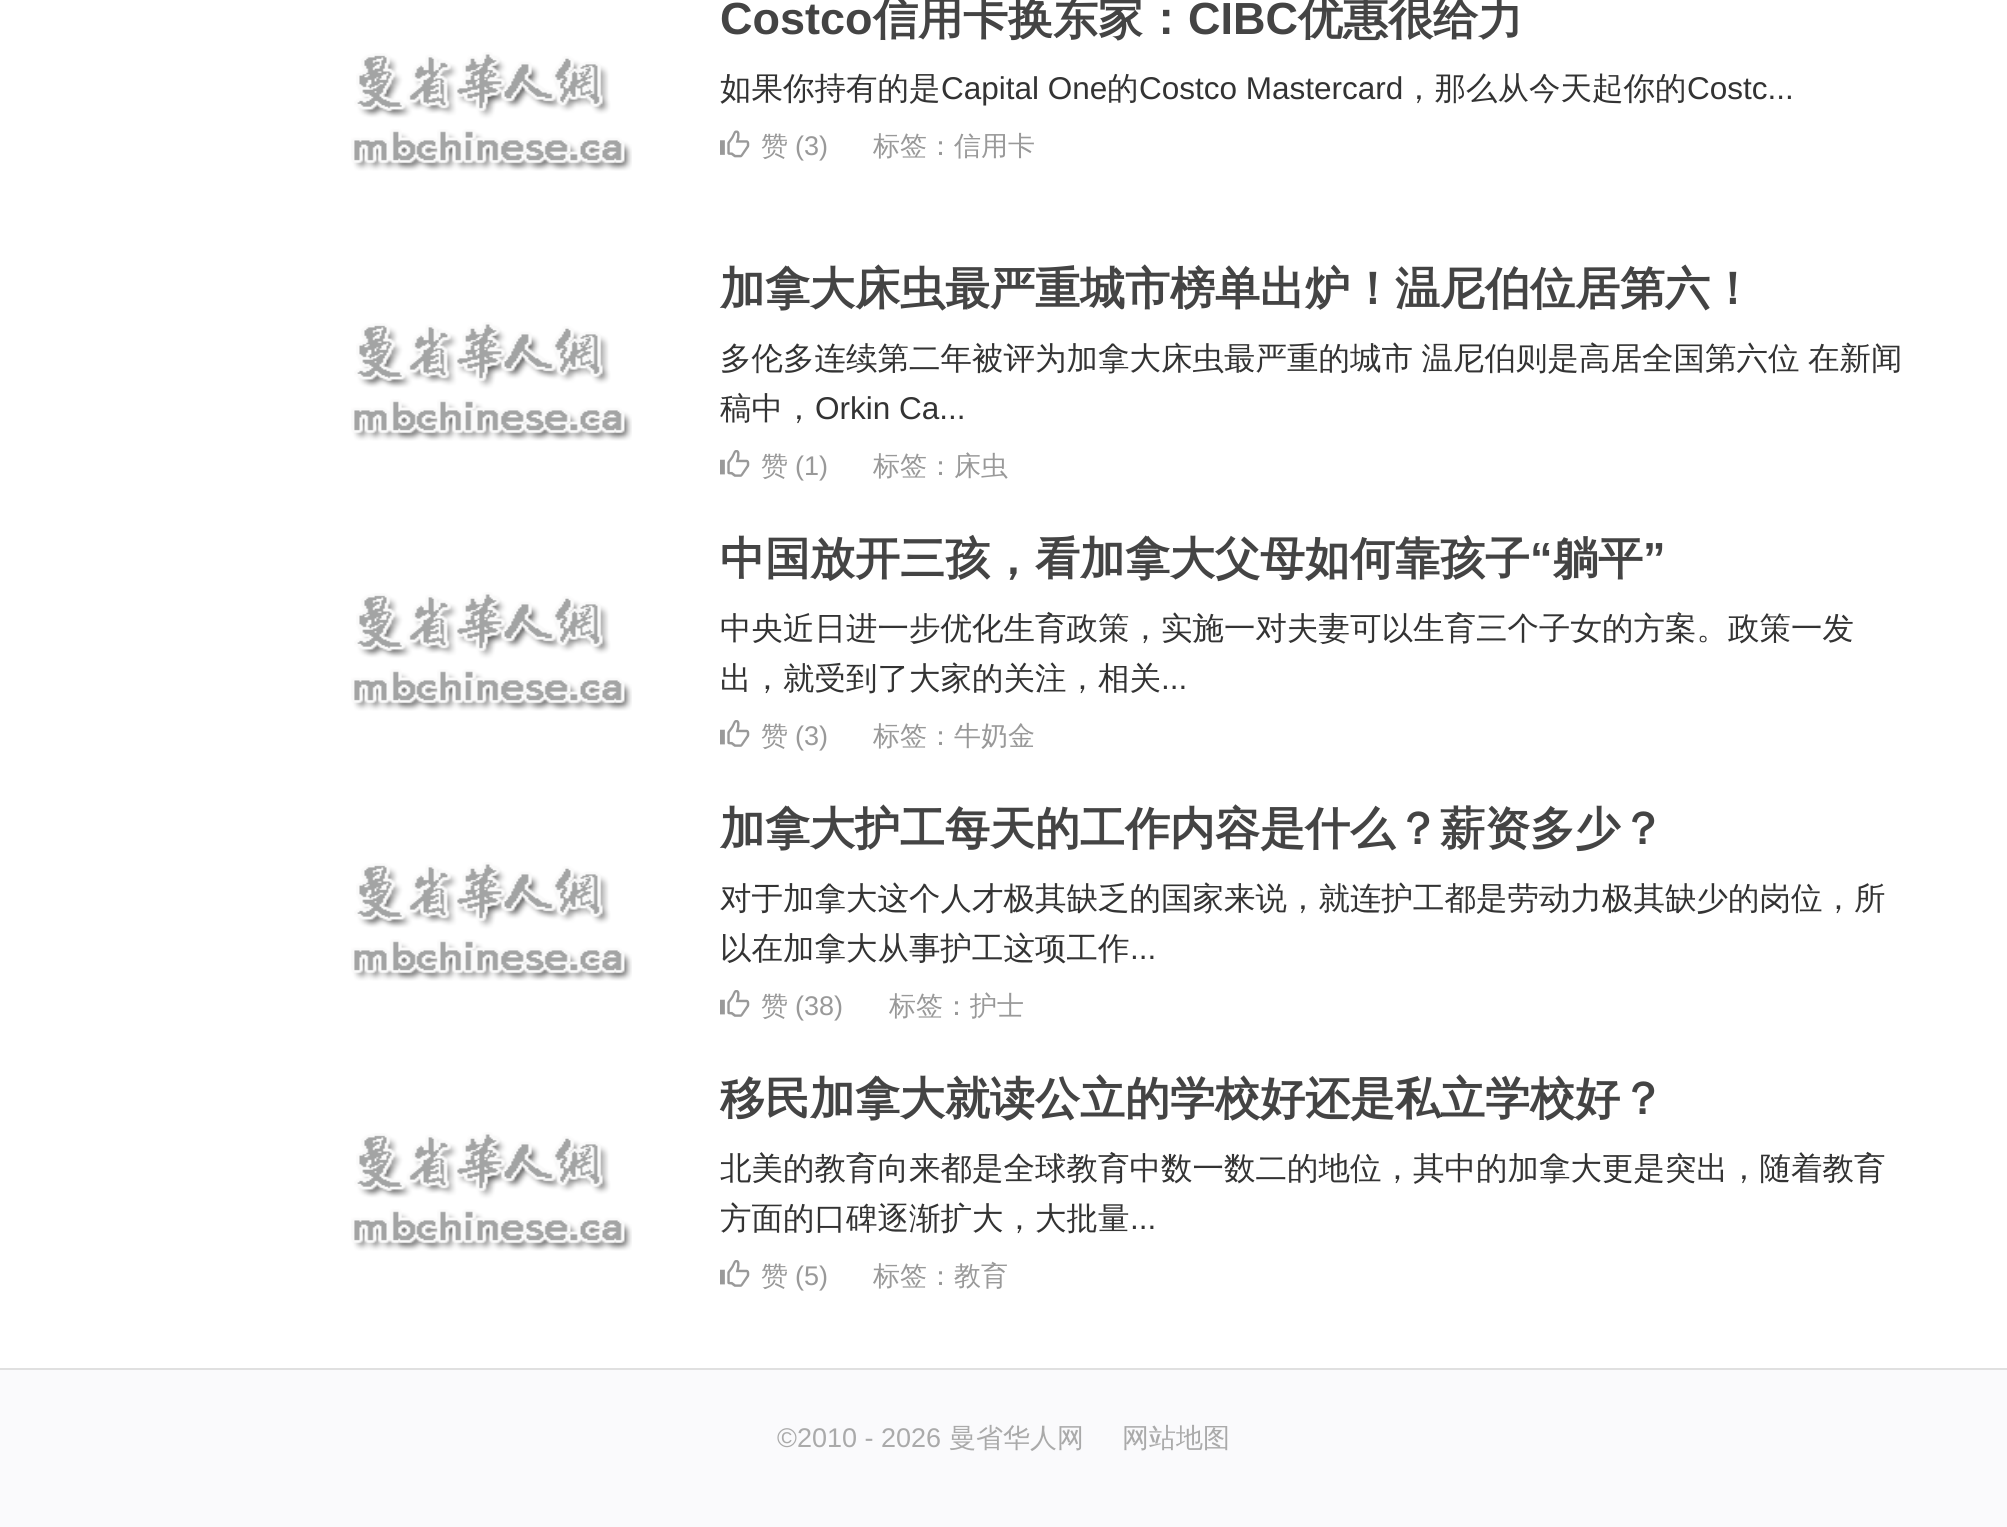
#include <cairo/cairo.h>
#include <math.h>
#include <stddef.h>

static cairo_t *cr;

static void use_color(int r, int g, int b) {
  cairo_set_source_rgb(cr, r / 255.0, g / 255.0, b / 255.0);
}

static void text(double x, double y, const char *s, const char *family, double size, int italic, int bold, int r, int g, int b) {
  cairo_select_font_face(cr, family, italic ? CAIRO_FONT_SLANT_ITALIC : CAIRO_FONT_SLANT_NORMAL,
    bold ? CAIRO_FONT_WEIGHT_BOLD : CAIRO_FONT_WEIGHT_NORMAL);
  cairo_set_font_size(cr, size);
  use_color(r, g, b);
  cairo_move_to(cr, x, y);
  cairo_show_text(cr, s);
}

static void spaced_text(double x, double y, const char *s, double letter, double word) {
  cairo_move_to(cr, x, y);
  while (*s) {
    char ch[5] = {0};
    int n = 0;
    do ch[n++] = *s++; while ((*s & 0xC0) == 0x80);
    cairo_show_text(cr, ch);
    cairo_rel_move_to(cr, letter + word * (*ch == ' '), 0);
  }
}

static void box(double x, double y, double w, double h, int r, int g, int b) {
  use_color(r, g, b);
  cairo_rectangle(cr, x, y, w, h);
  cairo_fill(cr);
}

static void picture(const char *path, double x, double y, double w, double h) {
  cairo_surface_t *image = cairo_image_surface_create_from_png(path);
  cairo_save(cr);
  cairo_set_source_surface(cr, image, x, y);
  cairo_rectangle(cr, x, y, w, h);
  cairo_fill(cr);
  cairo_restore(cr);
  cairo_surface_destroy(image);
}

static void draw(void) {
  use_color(255, 255, 255);
  cairo_paint(cr);
  picture("img_01.png", 351, 52, 281, 119);
  picture("img_02.png", 720, 130, 30, 28);
  picture("img_01.png", 351, 322, 281, 119);
  picture("img_03.png", 720, 450, 30, 27);
  picture("img_01.png", 351, 592, 281, 119);
  picture("img_03.png", 720, 720, 30, 27);
  picture("img_01.png", 351, 862, 281, 119);
  picture("img_03.png", 720, 990, 30, 27);
  picture("img_01.png", 351, 1132, 281, 119);
  picture("img_03.png", 720, 1260, 30, 27);
  box(0, 1370, 2007, 157, 250, 250, 252);
  box(0, 1368, 2007, 2, 224, 224, 224);
  text(720, 34, "Costco", "Liberation Sans", 45, 0, 1, 68, 68, 68);
  text(873, 34, "信用卡换东家：", "WenQuanYi Zen Hei", 45, 0, 1, 68, 68, 68);
  text(1188, 34, "CIBC", "Liberation Sans", 45, 0, 1, 68, 68, 68);
  text(1298, 34, "优惠很给力", "WenQuanYi Zen Hei", 45, 0, 1, 68, 68, 68);
  text(720, 99, "如果你持有的是", "WenQuanYi Zen Hei Medium", 31.5, 0, 0, 51, 51, 51);
  text(941, 99, "Capital One", "Liberation Sans", 31.5, 0, 0, 51, 51, 51);
  text(1107, 99, "的", "WenQuanYi Zen Hei Medium", 31.5, 0, 0, 51, 51, 51);
  text(1139, 99, "Costco Mastercard", "Liberation Sans", 31.5, 0, 0, 51, 51, 51);
  text(1403, 99, "，那么从今天起你的", "WenQuanYi Zen Hei Medium", 31.5, 0, 0, 51, 51, 51);
  text(1687, 99, "Costc...", "Liberation Sans", 31.5, 0, 0, 51, 51, 51);
  text(761, 155, "赞", "WenQuanYi Zen Hei Medium", 27, 0, 0, 153, 153, 153);
  text(795, 155, "(3)", "Liberation Sans", 27, 0, 0, 153, 153, 153);
  text(873, 155, "标签：信用卡", "WenQuanYi Zen Hei Medium", 27, 0, 0, 153, 153, 153);
  text(720, 304, "加拿大床虫最严重城市榜单出炉！温尼伯位居第六！", "WenQuanYi Zen Hei", 45, 0, 1, 68, 68, 68);
  cairo_select_font_face(cr, "WenQuanYi Zen Hei Medium", CAIRO_FONT_SLANT_NORMAL, CAIRO_FONT_WEIGHT_NORMAL);
  cairo_set_font_size(cr, 31.5);
  use_color(51, 51, 51);
  spaced_text(720, 369, "多伦多连续第二年被评为加拿大床虫最严重的城市 温尼伯则是高居全国第六位 在新闻", 0, -1);
  text(720, 419, "稿中，", "WenQuanYi Zen Hei Medium", 31.5, 0, 0, 51, 51, 51);
  text(815, 419, "Orkin Ca...", "Liberation Sans", 31.5, 0, 0, 51, 51, 51);
  text(761, 475, "赞", "WenQuanYi Zen Hei Medium", 27, 0, 0, 153, 153, 153);
  text(795, 475, "(1)", "Liberation Sans", 27, 0, 0, 153, 153, 153);
  text(873, 475, "标签：床虫", "WenQuanYi Zen Hei Medium", 27, 0, 0, 153, 153, 153);
  text(720, 574, "中国放开三孩，看加拿大父母如何靠孩子", "WenQuanYi Zen Hei", 45, 0, 1, 68, 68, 68);
  text(1530, 574, "“", "Liberation Sans", 45, 0, 1, 68, 68, 68);
  text(1553, 574, "躺平", "WenQuanYi Zen Hei", 45, 0, 1, 68, 68, 68);
  text(1643, 574, "”", "Liberation Sans", 45, 0, 1, 68, 68, 68);
  text(720, 639, "中央近日进一步优化生育政策，实施一对夫妻可以生育三个子女的方案。政策一发", "WenQuanYi Zen Hei Medium", 31.5, 0, 0, 51, 51, 51);
  text(720, 689, "出，就受到了大家的关注，相关", "WenQuanYi Zen Hei Medium", 31.5, 0, 0, 51, 51, 51);
  text(1161, 689, "...", "Liberation Sans", 31.5, 0, 0, 51, 51, 51);
  text(761, 745, "赞", "WenQuanYi Zen Hei Medium", 27, 0, 0, 153, 153, 153);
  text(795, 745, "(3)", "Liberation Sans", 27, 0, 0, 153, 153, 153);
  text(873, 745, "标签：牛奶金", "WenQuanYi Zen Hei Medium", 27, 0, 0, 153, 153, 153);
  text(720, 844, "加拿大护工每天的工作内容是什么？薪资多少？", "WenQuanYi Zen Hei", 45, 0, 1, 68, 68, 68);
  text(720, 909, "对于加拿大这个人才极其缺乏的国家来说，就连护工都是劳动力极其缺少的岗位，所", "WenQuanYi Zen Hei Medium", 31.5, 0, 0, 51, 51, 51);
  text(720, 959, "以在加拿大从事护工这项工作", "WenQuanYi Zen Hei Medium", 31.5, 0, 0, 51, 51, 51);
  text(1130, 959, "...", "Liberation Sans", 31.5, 0, 0, 51, 51, 51);
  text(761, 1015, "赞", "WenQuanYi Zen Hei Medium", 27, 0, 0, 153, 153, 153);
  text(795, 1015, "(38)", "Liberation Sans", 27, 0, 0, 153, 153, 153);
  text(889, 1015, "标签：护士", "WenQuanYi Zen Hei Medium", 27, 0, 0, 153, 153, 153);
  text(720, 1114, "移民加拿大就读公立的学校好还是私立学校好？", "WenQuanYi Zen Hei", 45, 0, 1, 68, 68, 68);
  text(720, 1179, "北美的教育向来都是全球教育中数一数二的地位，其中的加拿大更是突出，随着教育", "WenQuanYi Zen Hei Medium", 31.5, 0, 0, 51, 51, 51);
  text(720, 1229, "方面的口碑逐渐扩大，大批量", "WenQuanYi Zen Hei Medium", 31.5, 0, 0, 51, 51, 51);
  text(1130, 1229, "...", "Liberation Sans", 31.5, 0, 0, 51, 51, 51);
  text(761, 1285, "赞", "WenQuanYi Zen Hei Medium", 27, 0, 0, 153, 153, 153);
  text(795, 1285, "(5)", "Liberation Sans", 27, 0, 0, 153, 153, 153);
  text(873, 1285, "标签：教育", "WenQuanYi Zen Hei Medium", 27, 0, 0, 153, 153, 153);
  text(777, 1447, "©2010 - 2026", "Liberation Sans", 27, 0, 0, 170, 170, 170);
  text(949, 1447, "曼省华人网", "WenQuanYi Zen Hei Medium", 27, 0, 0, 170, 170, 170);
  text(1122, 1447, "网站地图", "WenQuanYi Zen Hei Medium", 27, 0, 0, 170, 170, 170);
}

int main(void) {
  cairo_surface_t *surface = cairo_image_surface_create(CAIRO_FORMAT_RGB24, 2007, 1527);
  cr = cairo_create(surface);
  cairo_font_options_t *options = cairo_font_options_create();
  cairo_font_options_set_hint_metrics(options, CAIRO_HINT_METRICS_OFF);
  cairo_font_options_set_hint_style(options, CAIRO_HINT_STYLE_NONE);
  cairo_set_font_options(cr, options);
  cairo_set_miter_limit(cr, 4);
  draw();
  cairo_surface_write_to_png(surface, "out.png");
  cairo_font_options_destroy(options);
  cairo_destroy(cr);
  cairo_surface_destroy(surface);
  return 0;
}
